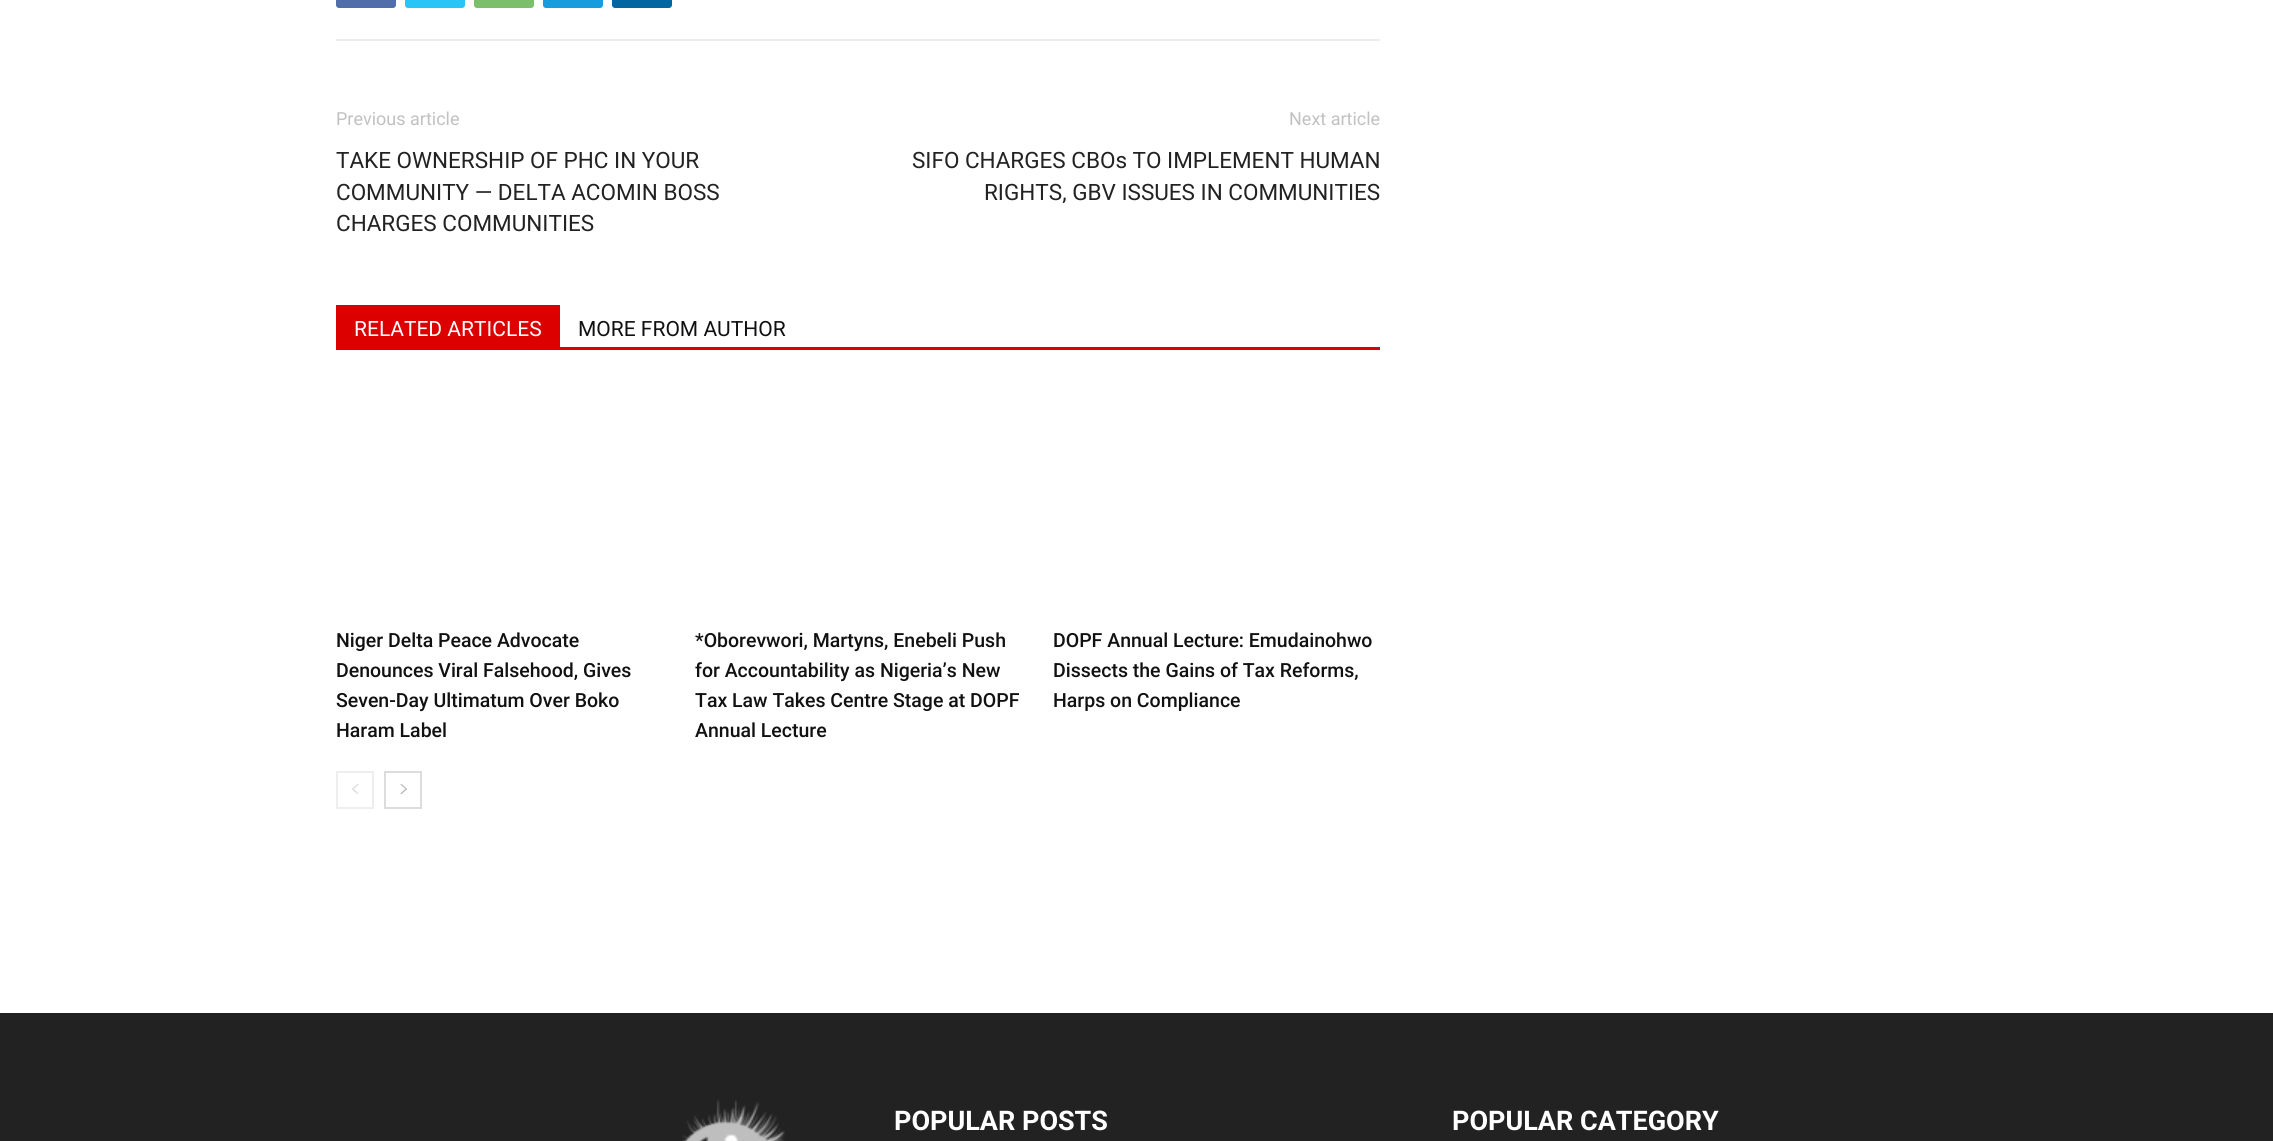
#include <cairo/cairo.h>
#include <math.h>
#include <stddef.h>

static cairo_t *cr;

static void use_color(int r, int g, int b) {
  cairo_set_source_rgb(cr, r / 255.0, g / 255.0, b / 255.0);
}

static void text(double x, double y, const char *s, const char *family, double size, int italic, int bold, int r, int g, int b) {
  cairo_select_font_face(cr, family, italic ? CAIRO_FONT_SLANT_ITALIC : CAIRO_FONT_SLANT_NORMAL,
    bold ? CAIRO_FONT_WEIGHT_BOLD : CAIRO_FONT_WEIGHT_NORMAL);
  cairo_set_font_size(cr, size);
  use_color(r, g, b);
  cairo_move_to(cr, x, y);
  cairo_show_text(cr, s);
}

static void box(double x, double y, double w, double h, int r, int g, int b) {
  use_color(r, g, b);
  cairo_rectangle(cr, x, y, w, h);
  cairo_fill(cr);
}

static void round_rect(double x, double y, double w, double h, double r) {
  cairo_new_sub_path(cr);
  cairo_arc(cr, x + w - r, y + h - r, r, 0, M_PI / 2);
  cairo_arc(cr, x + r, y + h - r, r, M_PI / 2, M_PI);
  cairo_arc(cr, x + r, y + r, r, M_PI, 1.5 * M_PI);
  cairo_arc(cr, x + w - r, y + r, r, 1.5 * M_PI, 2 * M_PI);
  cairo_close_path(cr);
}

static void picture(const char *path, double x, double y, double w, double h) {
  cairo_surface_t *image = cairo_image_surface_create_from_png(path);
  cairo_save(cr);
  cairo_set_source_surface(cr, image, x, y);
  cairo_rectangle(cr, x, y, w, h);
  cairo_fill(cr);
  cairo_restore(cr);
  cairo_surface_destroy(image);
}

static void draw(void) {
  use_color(255, 255, 255);
  cairo_paint(cr);
  box(336, 39, 1044, 2, 237, 237, 237);
  use_color(81, 110, 171);
  round_rect(336, -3, 60, 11, 3);
  cairo_fill(cr);
  use_color(41, 197, 246);
  round_rect(405, -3, 60, 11, 3);
  cairo_fill(cr);
  use_color(123, 191, 106);
  round_rect(474, -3, 60, 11, 3);
  cairo_fill(cr);
  use_color(23, 156, 222);
  round_rect(543, -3, 60, 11, 3);
  cairo_fill(cr);
  use_color(2, 102, 160);
  round_rect(612, -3, 60, 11, 3);
  cairo_fill(cr);
  box(336, 347, 1044, 3, 221, 0, 0);
  box(336, 305, 224, 42, 221, 0, 0);
  cairo_rectangle(cr, 337, 772, 36, 36);
  use_color(238, 238, 238);
  cairo_stroke(cr);
  picture("img_01.png", 352, 783, 7, 11);
  cairo_rectangle(cr, 385, 772, 36, 36);
  use_color(220, 220, 220);
  cairo_stroke(cr);
  picture("img_02.png", 400, 784, 7, 11);
  box(0, 1013, 2273, 128, 34, 34, 34);
  picture("img_03.png", 682, 1099, 103, 42);
  text(336, 125, "Previous article", "Roboto", 18, 0, 0, 193, 193, 193);
  text(336, 168, "TAKE OWNERSHIP OF PHC IN YOUR", "Roboto", 22.5, 0, 0, 34, 34, 34);
  text(336, 200, "COMMUNITY — DELTA ACOMIN BOSS", "Roboto", 22.5, 0, 0, 34, 34, 34);
  text(336, 231, "CHARGES COMMUNITIES", "Roboto", 22.5, 0, 0, 34, 34, 34);
  text(1289, 125, "Next article", "Roboto", 18, 0, 0, 193, 193, 193);
  text(912, 168, "SIFO CHARGES CBOs TO IMPLEMENT HUMAN", "Roboto", 22.5, 0, 0, 34, 34, 34);
  text(984, 200, "RIGHTS, GBV ISSUES IN COMMUNITIES", "Roboto", 22.5, 0, 0, 34, 34, 34);
  text(354, 336, "RELATED ARTICLES", "Roboto", 21, 0, 0, 255, 255, 255);
  text(578, 336, "MORE FROM AUTHOR", "Roboto", 21, 0, 0, 17, 17, 17);
  text(336, 647, "Niger Delta Peace Advocate", "Roboto Medium", 19.5, 0, 0, 17, 17, 17);
  text(336, 677, "Denounces Viral Falsehood, Gives", "Roboto Medium", 19.5, 0, 0, 17, 17, 17);
  text(336, 707, "Seven-Day Ultimatum Over Boko", "Roboto Medium", 19.5, 0, 0, 17, 17, 17);
  text(336, 737, "Haram Label", "Roboto Medium", 19.5, 0, 0, 17, 17, 17);
  text(695, 647, "*Oborevwori, Martyns, Enebeli Push", "Roboto Medium", 19.5, 0, 0, 17, 17, 17);
  text(695, 677, "for Accountability as Nigeria’s New", "Roboto Medium", 19.5, 0, 0, 17, 17, 17);
  text(695, 707, "Tax Law Takes Centre Stage at DOPF", "Roboto Medium", 19.5, 0, 0, 17, 17, 17);
  text(695, 737, "Annual Lecture", "Roboto Medium", 19.5, 0, 0, 17, 17, 17);
  text(1053, 647, "DOPF Annual Lecture: Emudainohwo", "Roboto Medium", 19.5, 0, 0, 17, 17, 17);
  text(1053, 677, "Dissects the Gains of Tax Reforms,", "Roboto Medium", 19.5, 0, 0, 17, 17, 17);
  text(1053, 707, "Harps on Compliance", "Roboto Medium", 19.5, 0, 0, 17, 17, 17);
  text(894, 1130, "POPULAR POSTS", "Roboto", 27, 0, 1, 255, 255, 255);
  text(1452, 1130, "POPULAR CATEGORY", "Roboto", 27, 0, 1, 255, 255, 255);
}

int main(void) {
  cairo_surface_t *surface = cairo_image_surface_create(CAIRO_FORMAT_RGB24, 2273, 1141);
  cr = cairo_create(surface);
  cairo_font_options_t *options = cairo_font_options_create();
  cairo_font_options_set_hint_metrics(options, CAIRO_HINT_METRICS_OFF);
  cairo_font_options_set_hint_style(options, CAIRO_HINT_STYLE_NONE);
  cairo_set_font_options(cr, options);
  cairo_set_miter_limit(cr, 4);
  draw();
  cairo_surface_write_to_png(surface, "out.png");
  cairo_font_options_destroy(options);
  cairo_destroy(cr);
  cairo_surface_destroy(surface);
  return 0;
}
